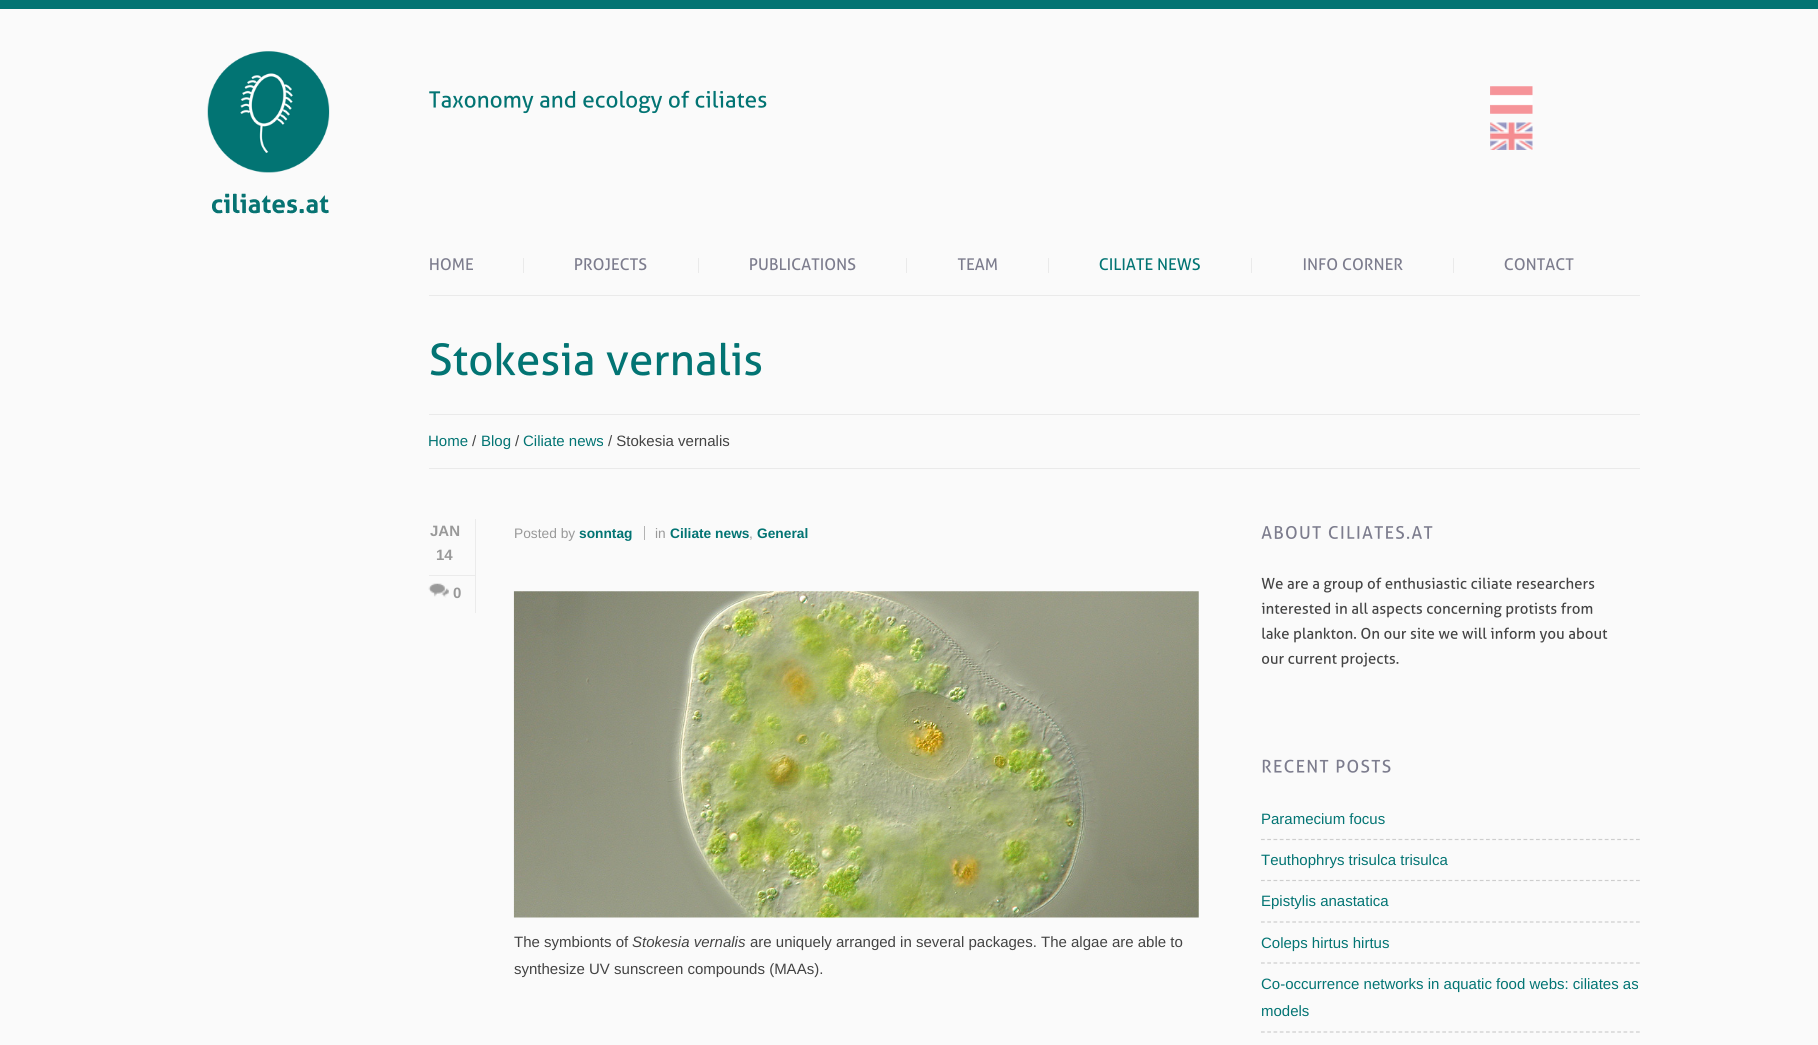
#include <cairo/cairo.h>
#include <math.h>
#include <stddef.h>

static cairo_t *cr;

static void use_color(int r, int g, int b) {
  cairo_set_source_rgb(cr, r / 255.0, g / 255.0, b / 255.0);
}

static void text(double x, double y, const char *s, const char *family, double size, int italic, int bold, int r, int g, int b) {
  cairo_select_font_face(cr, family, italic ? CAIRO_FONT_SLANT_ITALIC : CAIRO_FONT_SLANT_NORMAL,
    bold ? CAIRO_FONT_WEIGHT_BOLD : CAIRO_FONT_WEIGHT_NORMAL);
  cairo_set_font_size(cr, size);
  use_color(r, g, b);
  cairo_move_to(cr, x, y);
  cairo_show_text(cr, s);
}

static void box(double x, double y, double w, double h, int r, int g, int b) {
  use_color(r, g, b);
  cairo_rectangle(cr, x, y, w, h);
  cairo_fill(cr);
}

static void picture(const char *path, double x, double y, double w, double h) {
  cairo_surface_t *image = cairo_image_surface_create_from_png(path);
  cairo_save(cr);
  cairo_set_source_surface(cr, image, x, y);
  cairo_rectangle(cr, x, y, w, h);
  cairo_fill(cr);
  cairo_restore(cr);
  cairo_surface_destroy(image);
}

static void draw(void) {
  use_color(250, 250, 250);
  cairo_paint(cr);
  box(0, 0, 1818, 9, 2, 116, 115);
  picture("img_01.png", 207, 51, 123, 163);
  picture("img_02.png", 429, 90, 338, 24);
  picture("img_03.png", 1490, 86, 43, 28);
  picture("img_04.png", 1490, 122, 43, 28);
  picture("img_05.png", 430, 258, 43, 13);
  box(523, 258, 1, 15, 234, 234, 234);
  picture("img_06.png", 575, 258, 72, 13);
  box(698, 258, 1, 15, 234, 234, 234);
  picture("img_07.png", 750, 258, 106, 13);
  box(906, 258, 1, 15, 234, 234, 234);
  picture("img_08.png", 957, 258, 40, 13);
  box(1048, 258, 1, 15, 234, 234, 234);
  picture("img_09.png", 1099, 258, 101, 13);
  box(1251, 258, 1, 15, 234, 234, 234);
  picture("img_10.png", 1303, 258, 100, 13);
  box(1453, 258, 1, 15, 234, 234, 234);
  picture("img_11.png", 1504, 258, 70, 13);
  box(429, 295, 1211, 1, 234, 234, 234);
  picture("img_12.png", 430, 342, 332, 34);
  box(429, 414, 1211, 1, 234, 234, 234);
  box(429, 468, 1211, 1, 234, 234, 234);
  box(475, 519, 1, 94, 235, 235, 235);
  picture("img_13.png", 428, 583, 21, 15);
  box(429, 575, 46, 1, 235, 235, 235);
  box(644, 526, 1, 14, 179, 179, 179);
  picture("img_14.png", 513, 591, 686, 327);
  picture("img_15.png", 1261, 526, 172, 13);
  picture("img_16.png", 1261, 577, 334, 16);
  picture("img_17.png", 1261, 602, 332, 16);
  picture("img_18.png", 1262, 627, 346, 16);
  picture("img_19.png", 1262, 652, 137, 16);
  picture("img_20.png", 1262, 759, 129, 14);
  cairo_new_path(cr);
  cairo_move_to(cr, 1261, 839.5);
  cairo_line_to(cr, 1640, 839.5);
  use_color(206, 206, 206);
  cairo_set_line_width(cr, 1.2);
  cairo_set_dash(cr, (double[]){3.75, 2.5}, 2, 0);
  cairo_stroke(cr);
  cairo_new_path(cr);
  cairo_move_to(cr, 1261, 880.5);
  cairo_line_to(cr, 1640, 880.5);
  cairo_stroke(cr);
  cairo_new_path(cr);
  cairo_move_to(cr, 1261, 922);
  cairo_line_to(cr, 1640, 922);
  cairo_stroke(cr);
  cairo_new_path(cr);
  cairo_move_to(cr, 1261, 963);
  cairo_line_to(cr, 1640, 963);
  cairo_stroke(cr);
  cairo_new_path(cr);
  cairo_move_to(cr, 1261, 1032);
  cairo_line_to(cr, 1640, 1032);
  cairo_stroke(cr);
  text(428, 446, "Home", "Liberation Sans", 15, 0, 0, 2, 116, 115);
  text(472, 446, "/", "Liberation Sans", 15, 0, 0, 67, 67, 67);
  text(481, 446, "Blog", "Liberation Sans", 15, 0, 0, 2, 116, 115);
  text(515, 446, "/", "Liberation Sans", 15, 0, 0, 67, 67, 67);
  text(523, 446, "Ciliate news", "Liberation Sans", 15, 0, 0, 2, 116, 115);
  text(608, 446, "/ Stokesia vernalis", "Liberation Sans", 15, 0, 0, 67, 67, 67);
  text(430, 536, "JAN", "Liberation Sans", 15, 0, 1, 153, 153, 153);
  text(436, 560, "14", "Liberation Sans", 15, 0, 1, 153, 153, 153);
  text(453, 598, "0", "Liberation Sans", 15, 0, 1, 153, 153, 153);
  text(514, 538, "Posted by", "Liberation Sans", 13.75, 0, 0, 153, 153, 153);
  text(579, 538, "sonntag", "Liberation Sans", 13.75, 0, 1, 2, 116, 115);
  text(655, 538, "in", "Liberation Sans", 13.75, 0, 0, 153, 153, 153);
  text(670, 538, "Ciliate news", "Liberation Sans", 13.75, 0, 1, 2, 116, 115);
  text(749, 538, ",", "Liberation Sans", 13.75, 0, 0, 153, 153, 153);
  text(757, 538, "General", "Liberation Sans", 13.75, 0, 1, 2, 116, 115);
  text(514, 947, "The symbionts of", "Liberation Sans", 15, 0, 0, 67, 67, 67);
  text(632, 947, "Stokesia vernalis", "Liberation Sans", 15, 1, 0, 67, 67, 67);
  text(750, 947, "are uniquely arranged in several packages. The algae are able to", "Liberation Sans", 15, 0, 0, 67, 67, 67);
  text(514, 974, "synthesize UV sunscreen compounds (MAAs).", "Liberation Sans", 15, 0, 0, 67, 67, 67);
  text(1261, 824, "Paramecium focus", "Liberation Sans", 15, 0, 0, 2, 116, 115);
  text(1261, 865, "Teuthophrys trisulca trisulca", "Liberation Sans", 15, 0, 0, 2, 116, 115);
  text(1261, 906, "Epistylis anastatica", "Liberation Sans", 15, 0, 0, 2, 116, 115);
  text(1261, 948, "Coleps hirtus hirtus", "Liberation Sans", 15, 0, 0, 2, 116, 115);
  text(1261, 989, "Co-occurrence networks in aquatic food webs: ciliates as", "Liberation Sans", 15, 0, 0, 2, 116, 115);
  text(1261, 1016, "models", "Liberation Sans", 15, 0, 0, 2, 116, 115);
}

int main(void) {
  cairo_surface_t *surface = cairo_image_surface_create(CAIRO_FORMAT_RGB24, 1818, 1045);
  cr = cairo_create(surface);
  cairo_font_options_t *options = cairo_font_options_create();
  cairo_font_options_set_hint_metrics(options, CAIRO_HINT_METRICS_OFF);
  cairo_font_options_set_hint_style(options, CAIRO_HINT_STYLE_NONE);
  cairo_set_font_options(cr, options);
  cairo_set_miter_limit(cr, 4);
  draw();
  cairo_surface_write_to_png(surface, "out.png");
  cairo_font_options_destroy(options);
  cairo_destroy(cr);
  cairo_surface_destroy(surface);
  return 0;
}
